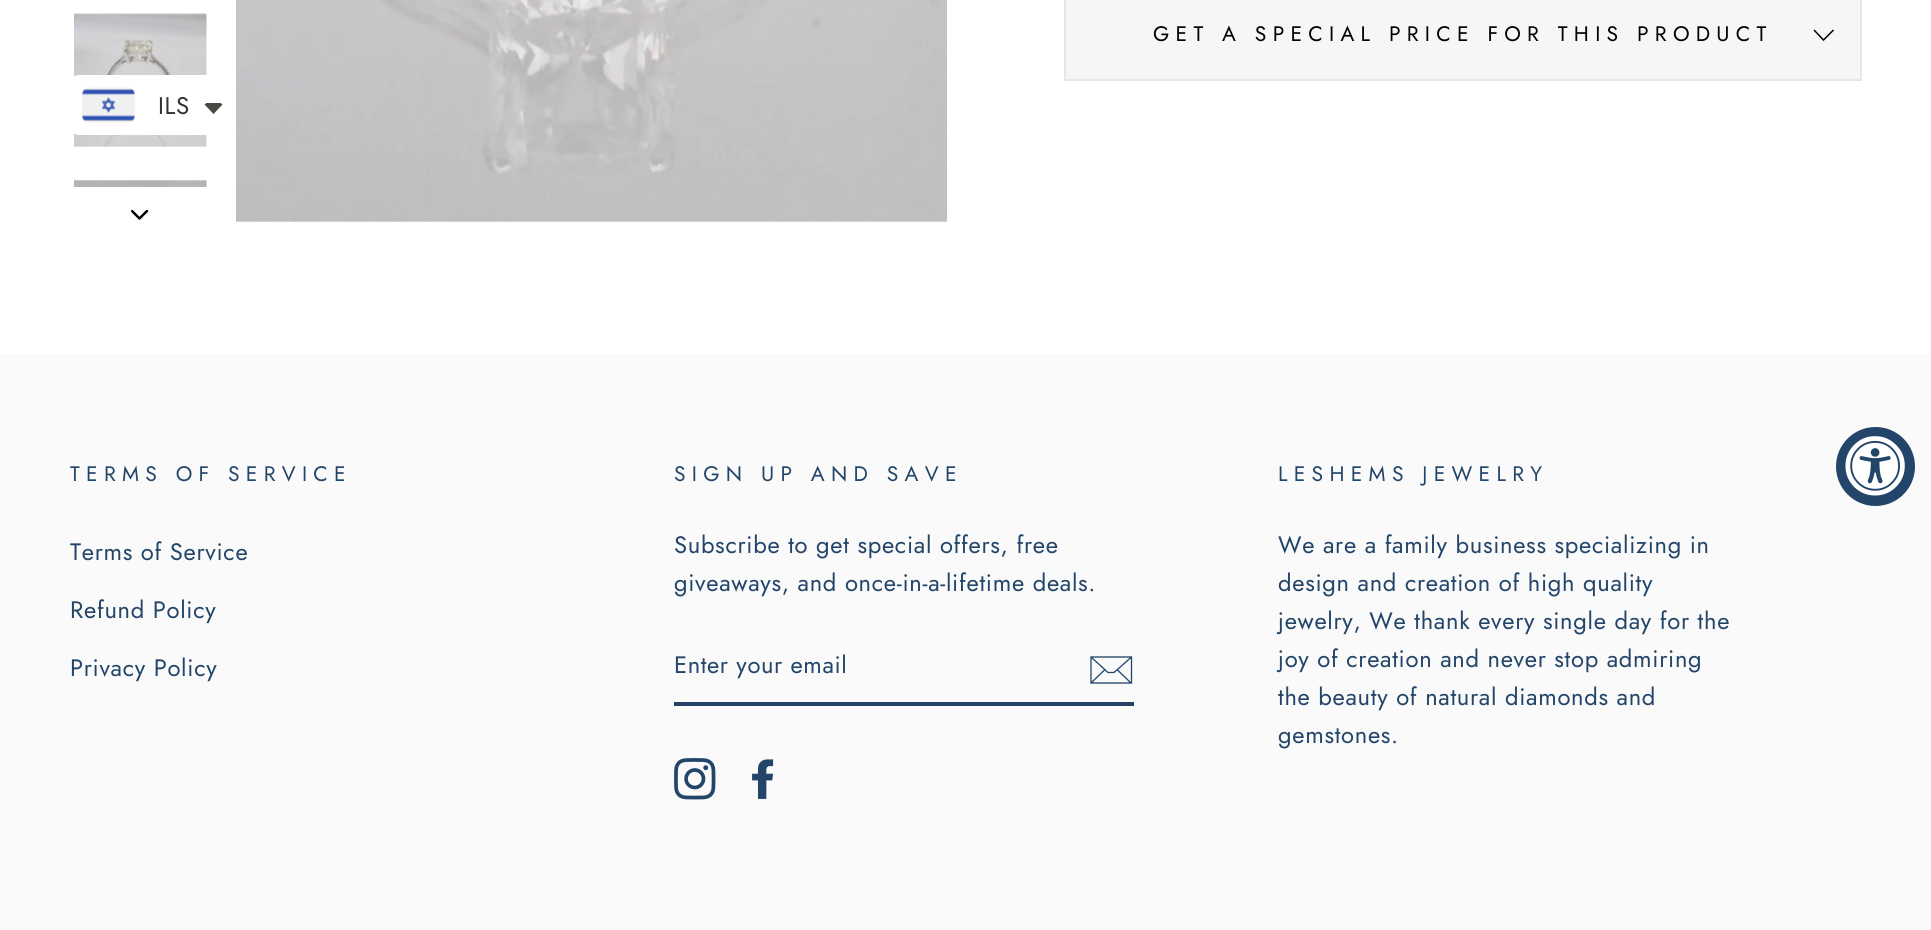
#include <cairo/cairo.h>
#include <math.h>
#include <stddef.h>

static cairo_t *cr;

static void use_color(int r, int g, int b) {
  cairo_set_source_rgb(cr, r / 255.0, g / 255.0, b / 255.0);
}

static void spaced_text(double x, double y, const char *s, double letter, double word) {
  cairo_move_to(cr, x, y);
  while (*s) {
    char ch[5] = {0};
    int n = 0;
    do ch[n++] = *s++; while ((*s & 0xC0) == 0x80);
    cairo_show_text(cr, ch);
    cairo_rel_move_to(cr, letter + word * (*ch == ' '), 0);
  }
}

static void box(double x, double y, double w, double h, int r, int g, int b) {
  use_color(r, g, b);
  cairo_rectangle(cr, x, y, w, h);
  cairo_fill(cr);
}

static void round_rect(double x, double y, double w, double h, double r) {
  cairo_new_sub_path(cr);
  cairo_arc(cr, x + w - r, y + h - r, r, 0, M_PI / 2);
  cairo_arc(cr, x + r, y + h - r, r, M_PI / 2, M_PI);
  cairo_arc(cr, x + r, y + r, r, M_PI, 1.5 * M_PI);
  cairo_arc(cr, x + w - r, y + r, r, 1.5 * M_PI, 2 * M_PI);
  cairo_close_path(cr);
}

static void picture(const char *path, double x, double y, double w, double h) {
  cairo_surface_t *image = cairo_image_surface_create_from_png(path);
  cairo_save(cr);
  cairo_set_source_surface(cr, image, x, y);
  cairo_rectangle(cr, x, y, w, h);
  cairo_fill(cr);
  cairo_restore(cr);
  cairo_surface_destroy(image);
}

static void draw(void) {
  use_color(255, 255, 255);
  cairo_paint(cr);
  picture("img_01.png", 74, 13, 133, 134);
  picture("img_02.png", 74, 180, 133, 7);
  picture("img_03.png", 131, 209, 18, 11);
  picture("img_04.png", 236, 0, 711, 222);
  box(1066, 0, 794, 79, 245, 246, 247);
  box(1064, 79, 798, 2, 232, 232, 225);
  box(1860, 0, 2, 79, 232, 232, 225);
  box(1064, 0, 2, 79, 232, 232, 225);
  cairo_new_path(cr);
  cairo_move_to(cr, 1814, 30);
  cairo_line_to(cr, 1823.5, 40);
  cairo_line_to(cr, 1833.5, 30);
  use_color(0, 0, 0);
  cairo_set_line_width(cr, 1.5);
  cairo_stroke(cr);
  box(0, 354, 1931, 576, 250, 250, 250);
  box(674, 702, 460, 4, 34, 69, 105);
  cairo_new_path(cr);
  cairo_move_to(cr, 1131.5, 683);
  cairo_line_to(cr, 1091, 683);
  cairo_line_to(cr, 1091, 657);
  cairo_line_to(cr, 1131.5, 657);
  cairo_close_path(cr);
  cairo_move_to(cr, 1091, 657);
  cairo_line_to(cr, 1108, 672.5);
  cairo_line_to(cr, 1114, 672.5);
  cairo_line_to(cr, 1131.5, 657);
  cairo_move_to(cr, 1104.5, 670);
  cairo_line_to(cr, 1091.5, 682.5);
  cairo_move_to(cr, 1131, 683);
  cairo_line_to(cr, 1117.5, 670);
  cairo_set_line_width(cr, 1.3);
  cairo_stroke(cr);
  picture("img_05.png", 674, 758, 42, 42);
  picture("img_06.png", 752, 759, 22, 40);
  use_color(255, 255, 255);
  round_rect(70, 75, 166, 60, 9);
  cairo_fill(cr);
  picture("img_07.png", 82, 87, 54, 36);
  use_color(71, 73, 66);
  cairo_new_path(cr);
  cairo_move_to(cr, 204.5, 104.5);
  cairo_curve_to(cr, 205, 104, 206, 103.5, 206.5, 103);
  cairo_line_to(cr, 220.5, 103);
  cairo_curve_to(cr, 221, 103.5, 222, 104, 222.5, 104.5);
  cairo_line_to(cr, 213.5, 114);
  cairo_close_path(cr);
  cairo_fill(cr);
  use_color(34, 69, 105);
  cairo_arc(cr, 1875.5, 466.5, 39.5, 0, 2 * M_PI);
  cairo_fill(cr);
  picture("img_08.png", 1845, 436, 60, 60);
  cairo_select_font_face(cr, "Jost", CAIRO_FONT_SLANT_NORMAL, CAIRO_FONT_WEIGHT_NORMAL);
  cairo_set_font_size(cr, 21);
  use_color(0, 0, 0);
  spaced_text(1153, 41, "GET A SPECIAL PRICE FOR THIS PRODUCT", 6.3, 0);
  use_color(34, 69, 105);
  spaced_text(70, 481, "TERMS OF SERVICE", 6.3, 0);
  cairo_set_font_size(cr, 23.75);
  spaced_text(70, 560, "Terms of Service", 0.7, 0);
  spaced_text(70, 618, "Refund Policy", 0.7, 0);
  spaced_text(70, 676, "Privacy Policy", 0.7, 0);
  cairo_set_font_size(cr, 21);
  spaced_text(674, 481, "SIGN UP AND SAVE", 6.3, 0);
  cairo_set_font_size(cr, 23.75);
  spaced_text(674, 553, "Subscribe to get special offers, free", 0.7, 0);
  spaced_text(674, 591, "giveaways, and once-in-a-lifetime deals.", 0.7, 0);
  spaced_text(674, 673, "Enter your email", 0.6, 0);
  cairo_set_font_size(cr, 21);
  spaced_text(1278, 481, "LESHEMS JEWELRY", 6.3, 0);
  cairo_set_font_size(cr, 23.75);
  spaced_text(1278, 553, "We are a family business specializing in", 0.7, 0);
  spaced_text(1278, 591, "design and creation of high quality", 0.7, 0);
  spaced_text(1278, 629, "jewelry, We thank every single day for the", 0.7, 0);
  spaced_text(1278, 667, "joy of creation and never stop admiring", 0.7, 0);
  spaced_text(1278, 705, "the beauty of natural diamonds and", 0.7, 0);
  spaced_text(1278, 743, "gemstones.", 0.7, 0);
  cairo_set_font_size(cr, 24);
  use_color(51, 51, 51);
  spaced_text(158, 114, "ILS", 0.7, 0);
}

int main(void) {
  cairo_surface_t *surface = cairo_image_surface_create(CAIRO_FORMAT_RGB24, 1931, 930);
  cr = cairo_create(surface);
  cairo_font_options_t *options = cairo_font_options_create();
  cairo_font_options_set_hint_metrics(options, CAIRO_HINT_METRICS_OFF);
  cairo_font_options_set_hint_style(options, CAIRO_HINT_STYLE_NONE);
  cairo_set_font_options(cr, options);
  cairo_set_miter_limit(cr, 4);
  draw();
  cairo_surface_write_to_png(surface, "out.png");
  cairo_font_options_destroy(options);
  cairo_destroy(cr);
  cairo_surface_destroy(surface);
  return 0;
}
